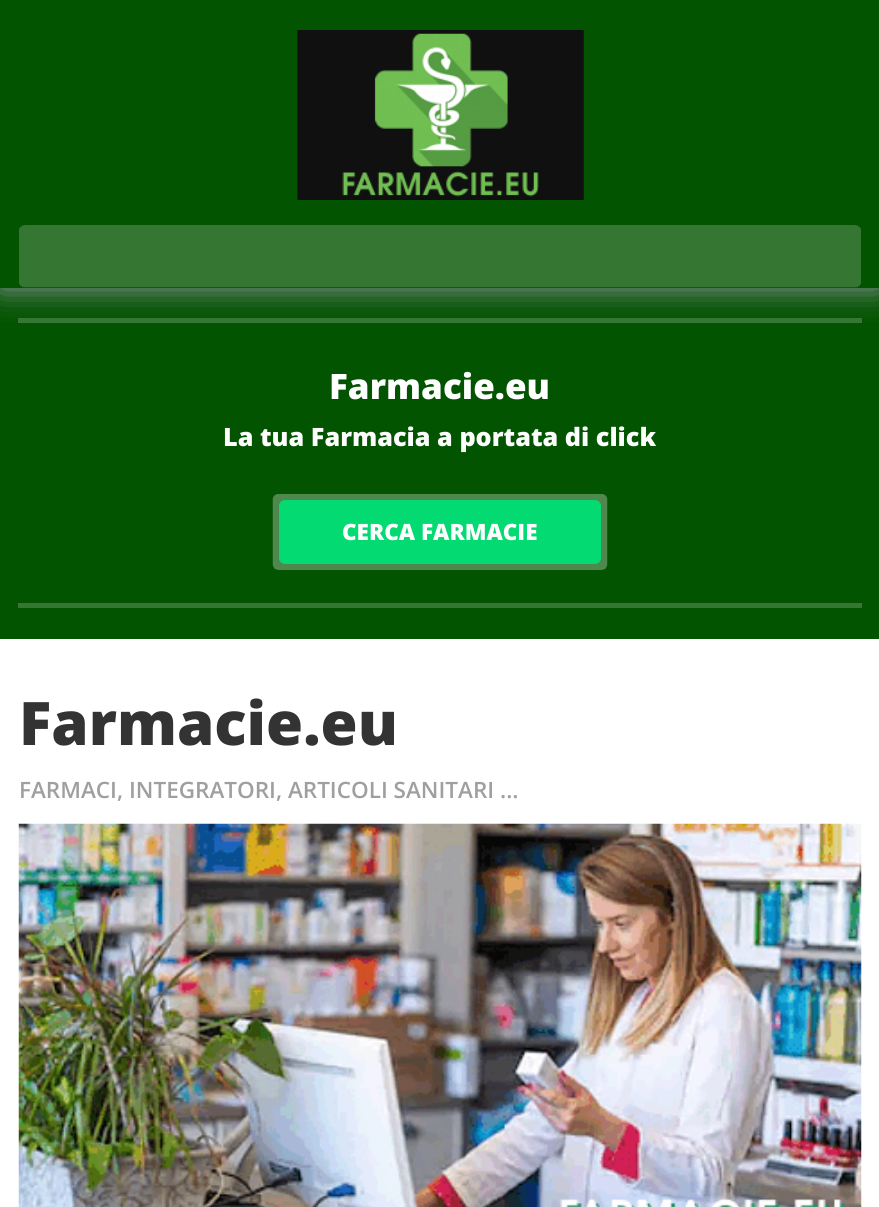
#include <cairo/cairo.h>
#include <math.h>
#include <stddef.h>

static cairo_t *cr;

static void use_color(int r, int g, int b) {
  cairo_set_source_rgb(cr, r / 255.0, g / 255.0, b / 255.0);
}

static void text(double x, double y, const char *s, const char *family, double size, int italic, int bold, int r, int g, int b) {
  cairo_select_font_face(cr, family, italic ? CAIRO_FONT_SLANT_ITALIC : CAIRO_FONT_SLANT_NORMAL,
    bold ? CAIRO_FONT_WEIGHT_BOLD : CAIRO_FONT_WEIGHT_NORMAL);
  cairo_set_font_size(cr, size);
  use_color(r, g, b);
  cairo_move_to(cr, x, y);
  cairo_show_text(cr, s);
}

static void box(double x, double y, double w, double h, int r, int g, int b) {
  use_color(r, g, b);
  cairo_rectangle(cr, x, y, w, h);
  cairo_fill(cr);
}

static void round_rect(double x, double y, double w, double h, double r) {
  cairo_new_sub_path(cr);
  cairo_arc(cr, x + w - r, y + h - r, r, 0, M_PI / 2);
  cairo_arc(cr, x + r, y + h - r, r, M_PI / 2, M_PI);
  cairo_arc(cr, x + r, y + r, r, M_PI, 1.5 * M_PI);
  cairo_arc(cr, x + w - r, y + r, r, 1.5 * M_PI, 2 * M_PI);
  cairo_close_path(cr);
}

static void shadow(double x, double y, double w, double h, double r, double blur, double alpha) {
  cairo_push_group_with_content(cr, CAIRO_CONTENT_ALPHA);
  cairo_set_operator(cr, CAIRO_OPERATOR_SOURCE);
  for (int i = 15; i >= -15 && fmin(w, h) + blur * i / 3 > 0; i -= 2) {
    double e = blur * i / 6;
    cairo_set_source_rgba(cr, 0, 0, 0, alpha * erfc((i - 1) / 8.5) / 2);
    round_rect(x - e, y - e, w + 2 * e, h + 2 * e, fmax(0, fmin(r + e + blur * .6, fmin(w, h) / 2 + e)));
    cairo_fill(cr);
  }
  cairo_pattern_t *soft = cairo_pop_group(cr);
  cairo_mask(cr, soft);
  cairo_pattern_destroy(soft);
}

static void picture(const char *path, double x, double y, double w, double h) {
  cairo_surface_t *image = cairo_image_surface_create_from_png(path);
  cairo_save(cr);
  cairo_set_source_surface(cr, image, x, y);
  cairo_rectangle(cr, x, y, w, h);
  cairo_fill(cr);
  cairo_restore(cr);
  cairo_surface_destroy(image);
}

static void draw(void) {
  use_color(255, 255, 255);
  cairo_paint(cr);
  box(0, 0, 879, 639, 2, 84, 0);
  cairo_save(cr);
  cairo_set_fill_rule(cr, CAIRO_FILL_RULE_EVEN_ODD);
  cairo_new_path(cr);
  cairo_move_to(cr, 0, 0);
  cairo_line_to(cr, 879, 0);
  cairo_line_to(cr, 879, 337);
  cairo_line_to(cr, 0, 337);
  cairo_close_path(cr);
  cairo_move_to(cr, 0, 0);
  cairo_line_to(cr, 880, 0);
  cairo_line_to(cr, 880, 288);
  cairo_line_to(cr, 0, 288);
  cairo_close_path(cr);
  cairo_clip(cr);
  use_color(142, 149, 157);
  shadow(0, 1, 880, 288, 0, 15.5, 1);
  cairo_restore(cr);
  picture("img_01.png", 297, 30, 287, 170);
  picture("img_02.png", 19, 225, 842, 63);
  box(18, 318, 844, 5, 55, 119, 54);
  picture("img_03.png", 272, 494, 336, 76);
  use_color(3, 218, 114);
  round_rect(279, 500, 322, 64, 6);
  cairo_fill(cr);
  box(18, 603, 844, 5, 53, 118, 51);
  picture("img_04.png", 18, 823, 844, 384);
  text(329, 399, "Farmacie.eu", "Open Sans ExtraBold", 35, 0, 0, 255, 255, 255);
  text(223, 446, "La tua Farmacia a portata di click", "Open Sans ExtraBold", 25.25, 0, 0, 255, 255, 255);
  text(342, 540, "CERCA FARMACIE", "Open Sans ExtraBold", 22.5, 0, 0, 255, 255, 255);
  text(19, 745, "Farmacie.eu", "Open Sans ExtraBold", 60, 0, 0, 51, 51, 51);
  text(19, 798, "FARMACI, INTEGRATORI, ARTICOLI SANITARI ...", "Open Sans SemiBold", 22.5, 0, 0, 159, 159, 159);
}

int main(void) {
  cairo_surface_t *surface = cairo_image_surface_create(CAIRO_FORMAT_RGB24, 879, 1207);
  cr = cairo_create(surface);
  cairo_font_options_t *options = cairo_font_options_create();
  cairo_font_options_set_hint_metrics(options, CAIRO_HINT_METRICS_OFF);
  cairo_font_options_set_hint_style(options, CAIRO_HINT_STYLE_NONE);
  cairo_set_font_options(cr, options);
  cairo_set_miter_limit(cr, 4);
  draw();
  cairo_surface_write_to_png(surface, "out.png");
  cairo_font_options_destroy(options);
  cairo_destroy(cr);
  cairo_surface_destroy(surface);
  return 0;
}
